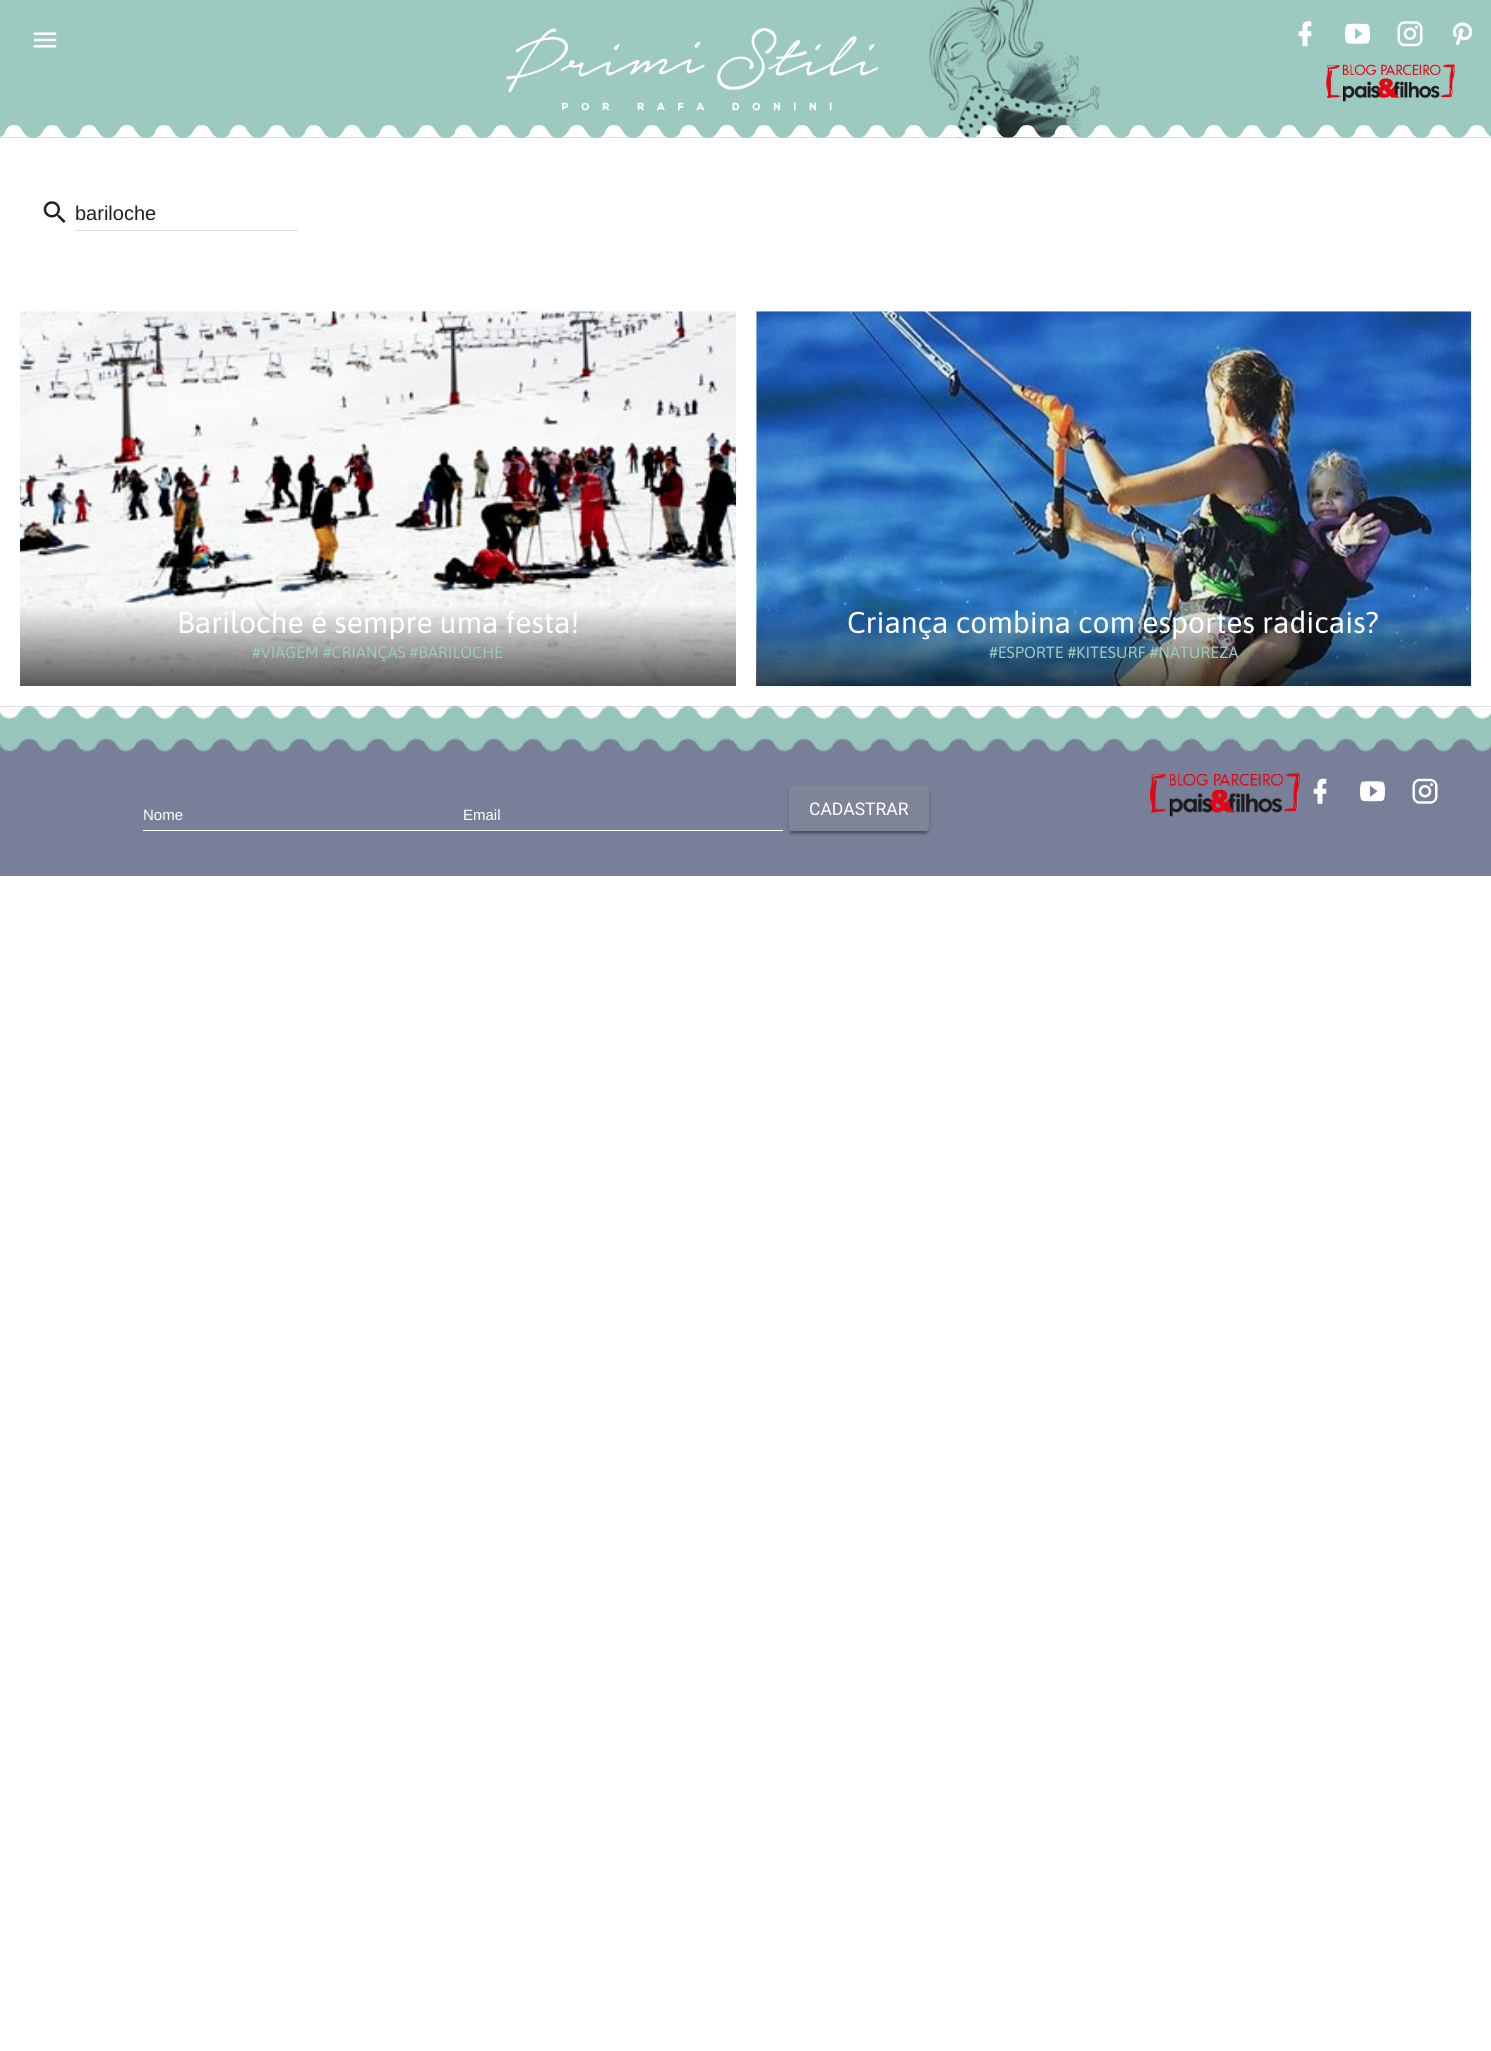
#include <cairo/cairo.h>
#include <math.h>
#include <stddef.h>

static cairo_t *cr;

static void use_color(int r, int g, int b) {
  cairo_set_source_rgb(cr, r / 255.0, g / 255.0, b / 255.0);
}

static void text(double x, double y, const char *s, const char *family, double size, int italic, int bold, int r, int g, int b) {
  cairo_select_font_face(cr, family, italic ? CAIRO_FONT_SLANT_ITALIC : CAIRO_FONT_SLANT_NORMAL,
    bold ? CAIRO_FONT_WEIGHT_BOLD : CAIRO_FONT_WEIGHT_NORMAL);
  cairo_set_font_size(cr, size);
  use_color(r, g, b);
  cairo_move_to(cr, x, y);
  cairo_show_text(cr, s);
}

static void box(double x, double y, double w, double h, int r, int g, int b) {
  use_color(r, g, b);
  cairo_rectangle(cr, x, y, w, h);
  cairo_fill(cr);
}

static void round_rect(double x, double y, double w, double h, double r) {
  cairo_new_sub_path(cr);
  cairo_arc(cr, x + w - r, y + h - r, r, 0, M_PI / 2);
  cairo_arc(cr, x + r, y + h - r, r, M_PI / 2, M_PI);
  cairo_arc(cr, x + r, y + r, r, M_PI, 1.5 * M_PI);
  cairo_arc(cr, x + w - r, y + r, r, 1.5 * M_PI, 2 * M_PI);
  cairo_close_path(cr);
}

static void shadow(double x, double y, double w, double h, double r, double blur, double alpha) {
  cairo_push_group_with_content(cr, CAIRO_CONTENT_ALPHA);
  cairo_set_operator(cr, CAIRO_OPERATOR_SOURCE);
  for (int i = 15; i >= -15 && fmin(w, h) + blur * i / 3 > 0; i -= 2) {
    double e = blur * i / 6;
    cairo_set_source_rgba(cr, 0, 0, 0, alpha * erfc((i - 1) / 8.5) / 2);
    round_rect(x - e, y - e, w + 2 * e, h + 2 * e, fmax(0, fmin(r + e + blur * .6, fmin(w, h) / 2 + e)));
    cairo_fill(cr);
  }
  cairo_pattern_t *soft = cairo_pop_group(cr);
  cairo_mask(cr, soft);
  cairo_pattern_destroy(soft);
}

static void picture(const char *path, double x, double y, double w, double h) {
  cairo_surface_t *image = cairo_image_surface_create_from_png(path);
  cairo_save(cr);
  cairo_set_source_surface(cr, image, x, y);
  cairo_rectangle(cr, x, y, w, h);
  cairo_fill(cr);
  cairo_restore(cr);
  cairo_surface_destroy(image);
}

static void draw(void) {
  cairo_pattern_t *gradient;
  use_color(255, 255, 255);
  cairo_paint(cr);
  box(0, 0, 1491, 138, 156, 202, 192);
  picture("img_01.png", 33, 32, 24, 16);
  picture("img_02.png", 928, 0, 172, 138);
  picture("img_03.png", 506, 28, 373, 83);
  picture("img_04.png", 1298, 21, 14, 26);
  picture("img_05.png", 1345, 23, 25, 21);
  picture("img_06.png", 1397, 21, 26, 26);
  picture("img_07.png", 1452, 22, 21, 23);
  picture("img_08.png", 1326, 63, 129, 39);
  picture("img_09.png", 0, 125, 1491, 13);
  picture("img_10.png", 43, 201, 23, 22);
  box(75, 230, 223, 1, 224, 224, 224);
  picture("img_11.png", 20, 311, 717, 375);
  picture("img_12.png", 756, 311, 716, 376);
  gradient = cairo_pattern_create_linear(1114, 605, 1114, 686);
  cairo_pattern_add_color_stop_rgba(gradient, 0, 0, 0, 0, 0);
  cairo_pattern_add_color_stop_rgba(gradient, 1, 0, 0, 0, 0.65);
  cairo_set_source(cr, gradient);
  cairo_pattern_destroy(gradient);
  cairo_rectangle(cr, 756, 608, 715, 78);
  cairo_fill(cr);
  box(0, 706, 1491, 170, 120, 127, 152);
  picture("img_13.png", 0, 706, 1491, 50);
  box(143, 830, 640, 1, 255, 255, 255);
  cairo_save(cr);
  cairo_set_fill_rule(cr, CAIRO_FILL_RULE_EVEN_ODD);
  cairo_new_path(cr);
  cairo_move_to(cr, 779, 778);
  cairo_line_to(cr, 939, 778);
  cairo_line_to(cr, 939, 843);
  cairo_line_to(cr, 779, 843);
  cairo_close_path(cr);
  cairo_move_to(cr, 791.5, 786);
  cairo_line_to(cr, 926.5, 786);
  cairo_curve_to(cr, 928, 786, 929, 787, 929, 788.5);
  cairo_line_to(cr, 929, 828.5);
  cairo_curve_to(cr, 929, 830, 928, 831, 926.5, 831);
  cairo_line_to(cr, 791.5, 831);
  cairo_curve_to(cr, 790, 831, 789, 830, 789, 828.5);
  cairo_line_to(cr, 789, 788.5);
  cairo_curve_to(cr, 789, 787, 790, 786, 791.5, 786);
  cairo_close_path(cr);
  cairo_clip(cr);
  use_color(0, 0, 0);
  shadow(789, 788, 140, 45, 2.5, 3, 0.12);
  cairo_restore(cr);
  cairo_save(cr);
  cairo_rectangle(cr, 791, 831, 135, 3);
  cairo_clip(cr);
  use_color(0, 0, 0);
  shadow(791, 793, 135, 40, 0, 0.5, 0.2);
  cairo_restore(cr);
  cairo_save(cr);
  cairo_set_fill_rule(cr, CAIRO_FILL_RULE_EVEN_ODD);
  cairo_new_path(cr);
  cairo_move_to(cr, 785, 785);
  cairo_line_to(cr, 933, 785);
  cairo_line_to(cr, 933, 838);
  cairo_line_to(cr, 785, 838);
  cairo_close_path(cr);
  cairo_move_to(cr, 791.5, 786);
  cairo_line_to(cr, 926.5, 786);
  cairo_curve_to(cr, 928, 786, 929, 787, 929, 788.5);
  cairo_line_to(cr, 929, 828.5);
  cairo_curve_to(cr, 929, 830, 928, 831, 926.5, 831);
  cairo_line_to(cr, 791.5, 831);
  cairo_curve_to(cr, 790, 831, 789, 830, 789, 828.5);
  cairo_line_to(cr, 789, 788.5);
  cairo_curve_to(cr, 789, 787, 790, 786, 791.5, 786);
  cairo_close_path(cr);
  cairo_clip(cr);
  use_color(0, 0, 0);
  shadow(789, 789, 140, 45, 2.5, 1, 0.14);
  cairo_restore(cr);
  cairo_set_source_rgba(cr, 0.62, 0.62, 0.62, 0.2);
  round_rect(789, 786, 140, 45, 2.5);
  cairo_fill(cr);
  picture("img_14.png", 1150, 772, 150, 45);
  picture("img_15.png", 1313, 778, 14, 26);
  picture("img_16.png", 1360, 781, 25, 21);
  picture("img_17.png", 1412, 778, 26, 26);
  text(75, 220, "bariloche", "Liberation Sans", 20, 0, 0, 33, 33, 33);
  text(177, 633, "Bariloche é sempre uma festa!", "Asap", 30, 0, 0, 255, 255, 255);
  text(252, 658, "#VIAGEM #CRIANÇAS #BARILOCHE", "Asap", 16.25, 0, 0, 156, 202, 192);
  text(847, 633, "Criança combina com esportes radicais?", "Asap", 30, 0, 0, 255, 255, 255);
  text(989, 658, "#ESPORTE #KITESURF #NATUREZA", "Asap", 16.25, 0, 0, 156, 202, 192);
  text(143, 820, "Nome", "Liberation Sans", 15, 0, 0, 255, 255, 255);
  text(463, 820, "Email", "Liberation Sans", 15, 0, 0, 255, 255, 255);
  text(809, 815, "CADASTRAR", "Roboto", 17.5, 0, 0, 255, 255, 255);
}

int main(void) {
  cairo_surface_t *surface = cairo_image_surface_create(CAIRO_FORMAT_RGB24, 1491, 2051);
  cr = cairo_create(surface);
  cairo_font_options_t *options = cairo_font_options_create();
  cairo_font_options_set_hint_metrics(options, CAIRO_HINT_METRICS_OFF);
  cairo_font_options_set_hint_style(options, CAIRO_HINT_STYLE_NONE);
  cairo_set_font_options(cr, options);
  cairo_set_miter_limit(cr, 4);
  draw();
  cairo_surface_write_to_png(surface, "out.png");
  cairo_font_options_destroy(options);
  cairo_destroy(cr);
  cairo_surface_destroy(surface);
  return 0;
}
